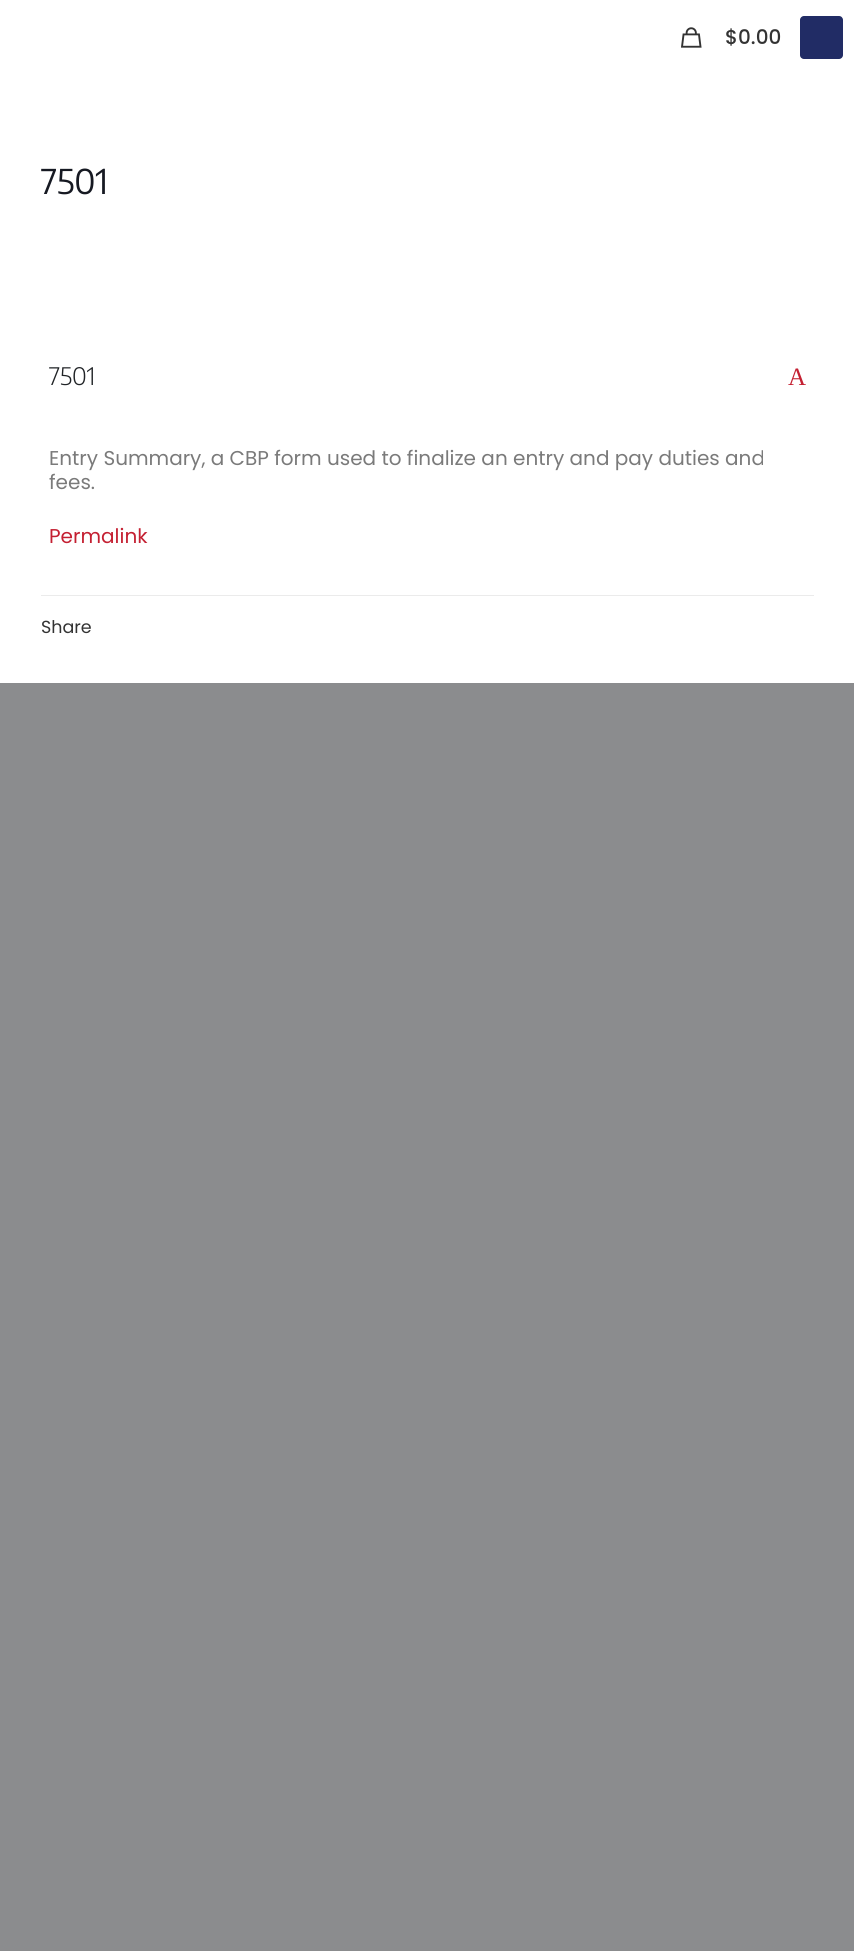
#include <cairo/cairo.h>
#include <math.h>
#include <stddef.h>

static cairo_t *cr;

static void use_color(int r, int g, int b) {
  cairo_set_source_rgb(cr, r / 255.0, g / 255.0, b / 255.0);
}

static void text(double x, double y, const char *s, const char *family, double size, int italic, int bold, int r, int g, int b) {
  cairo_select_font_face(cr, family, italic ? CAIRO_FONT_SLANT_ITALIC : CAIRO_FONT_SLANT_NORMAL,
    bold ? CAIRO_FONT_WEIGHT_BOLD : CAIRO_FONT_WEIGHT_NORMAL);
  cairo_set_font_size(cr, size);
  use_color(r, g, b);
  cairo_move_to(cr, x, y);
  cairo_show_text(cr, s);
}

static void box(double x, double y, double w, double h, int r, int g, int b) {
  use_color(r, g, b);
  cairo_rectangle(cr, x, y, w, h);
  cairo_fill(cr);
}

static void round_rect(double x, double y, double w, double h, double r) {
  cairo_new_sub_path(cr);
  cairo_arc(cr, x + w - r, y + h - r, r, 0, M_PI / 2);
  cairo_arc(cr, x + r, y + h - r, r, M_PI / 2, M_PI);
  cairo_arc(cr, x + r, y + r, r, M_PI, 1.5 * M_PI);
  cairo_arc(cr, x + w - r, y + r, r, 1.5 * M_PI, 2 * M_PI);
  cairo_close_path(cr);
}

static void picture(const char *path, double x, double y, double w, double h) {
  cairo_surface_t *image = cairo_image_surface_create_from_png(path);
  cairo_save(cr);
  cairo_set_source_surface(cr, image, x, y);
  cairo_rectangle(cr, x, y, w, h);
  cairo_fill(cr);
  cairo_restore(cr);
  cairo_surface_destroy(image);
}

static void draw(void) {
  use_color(255, 255, 255);
  cairo_paint(cr);
  picture("img_01.png", 681, 27, 21, 21);
  use_color(33, 44, 101);
  round_rect(800, 16, 43, 43, 4);
  cairo_fill(cr);
  box(41, 595, 773, 1, 235, 235, 235);
  box(0, 683, 854, 1268, 139, 140, 142);
  text(725, 44, "$0.00", "Poppins Medium", 20, 0, 0, 51, 51, 51);
  text(41, 194, "7501", "Encode Sans Condensed", 34, 0, 0, 22, 25, 34);
  text(49, 385, "7501", "Encode Sans Condensed Light", 24, 0, 0, 33, 36, 39);
  text(788, 385, "A", "Liberation Serif", 25, 0, 0, 196, 32, 50);
  text(49, 465, "Entry Summary, a CBP form used to finalize an entry and pay duties and", "Poppins", 20, 0, 0, 122, 122, 122);
  text(49, 489, "fees.", "Poppins", 20, 0, 0, 122, 122, 122);
  text(49, 543, "Permalink", "Poppins", 20, 0, 0, 196, 32, 50);
  text(41, 633, "Share", "Poppins", 17.5, 0, 0, 51, 51, 51);
}

int main(void) {
  cairo_surface_t *surface = cairo_image_surface_create(CAIRO_FORMAT_RGB24, 854, 1951);
  cr = cairo_create(surface);
  cairo_font_options_t *options = cairo_font_options_create();
  cairo_font_options_set_hint_metrics(options, CAIRO_HINT_METRICS_OFF);
  cairo_font_options_set_hint_style(options, CAIRO_HINT_STYLE_NONE);
  cairo_set_font_options(cr, options);
  cairo_set_miter_limit(cr, 4);
  draw();
  cairo_surface_write_to_png(surface, "out.png");
  cairo_font_options_destroy(options);
  cairo_destroy(cr);
  cairo_surface_destroy(surface);
  return 0;
}
